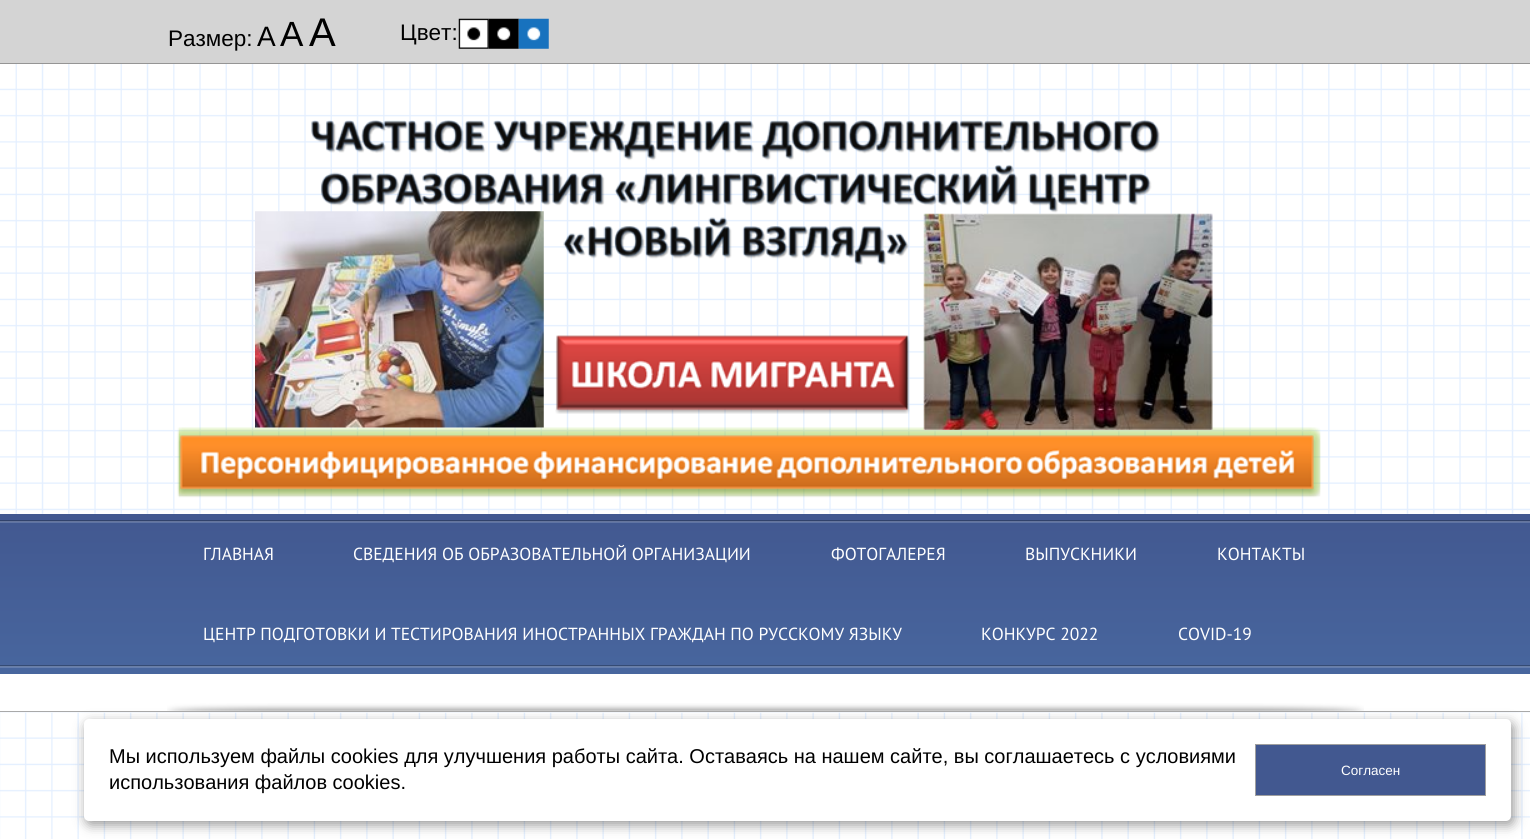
#include <cairo/cairo.h>
#include <math.h>
#include <stddef.h>

static cairo_t *cr;

static void use_color(int r, int g, int b) {
  cairo_set_source_rgb(cr, r / 255.0, g / 255.0, b / 255.0);
}

static void text(double x, double y, const char *s, const char *family, double size, int italic, int bold, int r, int g, int b) {
  cairo_select_font_face(cr, family, italic ? CAIRO_FONT_SLANT_ITALIC : CAIRO_FONT_SLANT_NORMAL,
    bold ? CAIRO_FONT_WEIGHT_BOLD : CAIRO_FONT_WEIGHT_NORMAL);
  cairo_set_font_size(cr, size);
  use_color(r, g, b);
  cairo_move_to(cr, x, y);
  cairo_show_text(cr, s);
}

static void box(double x, double y, double w, double h, int r, int g, int b) {
  use_color(r, g, b);
  cairo_rectangle(cr, x, y, w, h);
  cairo_fill(cr);
}

static void round_rect(double x, double y, double w, double h, double r) {
  cairo_new_sub_path(cr);
  cairo_arc(cr, x + w - r, y + h - r, r, 0, M_PI / 2);
  cairo_arc(cr, x + r, y + h - r, r, M_PI / 2, M_PI);
  cairo_arc(cr, x + r, y + r, r, M_PI, 1.5 * M_PI);
  cairo_arc(cr, x + w - r, y + r, r, 1.5 * M_PI, 2 * M_PI);
  cairo_close_path(cr);
}

static void shadow(double x, double y, double w, double h, double r, double blur, double alpha) {
  cairo_push_group_with_content(cr, CAIRO_CONTENT_ALPHA);
  cairo_set_operator(cr, CAIRO_OPERATOR_SOURCE);
  for (int i = 15; i >= -15 && fmin(w, h) + blur * i / 3 > 0; i -= 2) {
    double e = blur * i / 6;
    cairo_set_source_rgba(cr, 0, 0, 0, alpha * erfc((i - 1) / 8.5) / 2);
    round_rect(x - e, y - e, w + 2 * e, h + 2 * e, fmax(0, fmin(r + e + blur * .6, fmin(w, h) / 2 + e)));
    cairo_fill(cr);
  }
  cairo_pattern_t *soft = cairo_pop_group(cr);
  cairo_mask(cr, soft);
  cairo_pattern_destroy(soft);
}

static void picture(const char *path, double x, double y, double w, double h) {
  cairo_surface_t *image = cairo_image_surface_create_from_png(path);
  cairo_save(cr);
  cairo_set_source_surface(cr, image, x, y);
  cairo_rectangle(cr, x, y, w, h);
  cairo_fill(cr);
  cairo_restore(cr);
  cairo_surface_destroy(image);
}

static void draw(void) {
  cairo_pattern_t *gradient;
  use_color(255, 255, 255);
  cairo_paint(cr);
  box(0, 0, 1530, 63, 212, 212, 212);
  box(0, 63, 1530, 1, 149, 149, 149);
  picture("img_01.png", 458, 18, 31, 31);
  picture("img_02.png", 488, 18, 31, 31);
  picture("img_03.png", 518, 18, 31, 31);
  picture("img_04.png", 0, 64, 1530, 450);
  picture("img_05.png", 311, 120, 849, 145);
  picture("img_09.png", 177, 427, 1144, 71);
  picture("img_06.png", 255, 211, 289, 217);
  picture("img_07.png", 555, 335, 355, 79);
  picture("img_08.png", 923, 213, 290, 217);
  gradient = cairo_pattern_create_linear(765, 514, 765, 674);
  cairo_pattern_add_color_stop_rgba(gradient, 0, 0.259, 0.345, 0.565, 1);
  cairo_pattern_add_color_stop_rgba(gradient, 1, 0.282, 0.4, 0.62, 1);
  cairo_set_source(cr, gradient);
  cairo_pattern_destroy(gradient);
  cairo_rectangle(cr, 0, 514, 1530, 160);
  cairo_fill(cr);
  picture("img_10.png", 0, 520, 1530, 148);
  picture("img_11.png", 167, 703, 1197, 8);
  box(0, 711, 1530, 1, 169, 169, 169);
  picture("img_12.png", 0, 712, 1530, 127);
  use_color(0, 0, 0);
  shadow(86, 723, 1428, 102, 5, 6, 0.4);
  use_color(255, 255, 255);
  round_rect(84, 719, 1427, 102, 5);
  cairo_fill(cr);
  use_color(66, 88, 144);
  cairo_rectangle(cr, 1255.5, 744.5, 230, 51);
  cairo_fill_preserve(cr);
  use_color(159, 159, 159);
  cairo_set_line_width(cr, 1);
  cairo_stroke(cr);
  text(168, 46, "Размер:", "Liberation Sans", 22.5, 0, 0, 0, 0, 0);
  text(257, 46, "А", "Liberation Sans", 28, 0, 0, 0, 0, 0);
  text(280, 46, "А", "Liberation Sans", 35, 0, 0, 0, 0, 0);
  text(309, 46, "А", "Liberation Sans", 40, 0, 0, 0, 0, 0);
  text(400, 40, "Цвет:", "Liberation Sans", 22.5, 0, 0, 0, 0, 0);
  text(203, 560, "ГЛАВНАЯ", "PT Sans", 17.5, 0, 0, 255, 255, 255);
  text(353, 560, "СВЕДЕНИЯ ОБ ОБРАЗОВАТЕЛЬНОЙ ОРГАНИЗАЦИИ", "PT Sans", 17.5, 0, 0, 255, 255, 255);
  text(831, 560, "ФОТОГАЛЕРЕЯ", "PT Sans", 17.5, 0, 0, 255, 255, 255);
  text(1025, 560, "ВЫПУСКНИКИ", "PT Sans", 17.5, 0, 0, 255, 255, 255);
  text(1217, 560, "КОНТАКТЫ", "PT Sans", 17.5, 0, 0, 255, 255, 255);
  text(203, 640, "ЦЕНТР ПОДГОТОВКИ И ТЕСТИРОВАНИЯ ИНОСТРАННЫХ ГРАЖДАН ПО РУССКОМУ ЯЗЫКУ", "PT Sans", 17.5, 0, 0, 255, 255, 255);
  text(981, 640, "КОНКУРС 2022", "PT Sans", 17.5, 0, 0, 255, 255, 255);
  text(1178, 640, "COVID-19", "PT Sans", 17.5, 0, 0, 255, 255, 255);
  text(109, 763, "Мы используем файлы cookies для улучшения работы сайта. Оставаясь на нашем сайте, вы соглашаетесь с условиями", "Liberation Sans", 20, 0, 0, 0, 0, 0);
  text(109, 789, "использования файлов cookies.", "Liberation Sans", 20, 0, 0, 0, 0, 0);
  text(1341, 775, "Согласен", "Liberation Sans", 13.5, 0, 0, 255, 255, 255);
}

int main(void) {
  cairo_surface_t *surface = cairo_image_surface_create(CAIRO_FORMAT_RGB24, 1530, 839);
  cr = cairo_create(surface);
  cairo_font_options_t *options = cairo_font_options_create();
  cairo_font_options_set_hint_metrics(options, CAIRO_HINT_METRICS_OFF);
  cairo_font_options_set_hint_style(options, CAIRO_HINT_STYLE_NONE);
  cairo_set_font_options(cr, options);
  cairo_set_miter_limit(cr, 4);
  draw();
  cairo_surface_write_to_png(surface, "out.png");
  cairo_font_options_destroy(options);
  cairo_destroy(cr);
  cairo_surface_destroy(surface);
  return 0;
}
